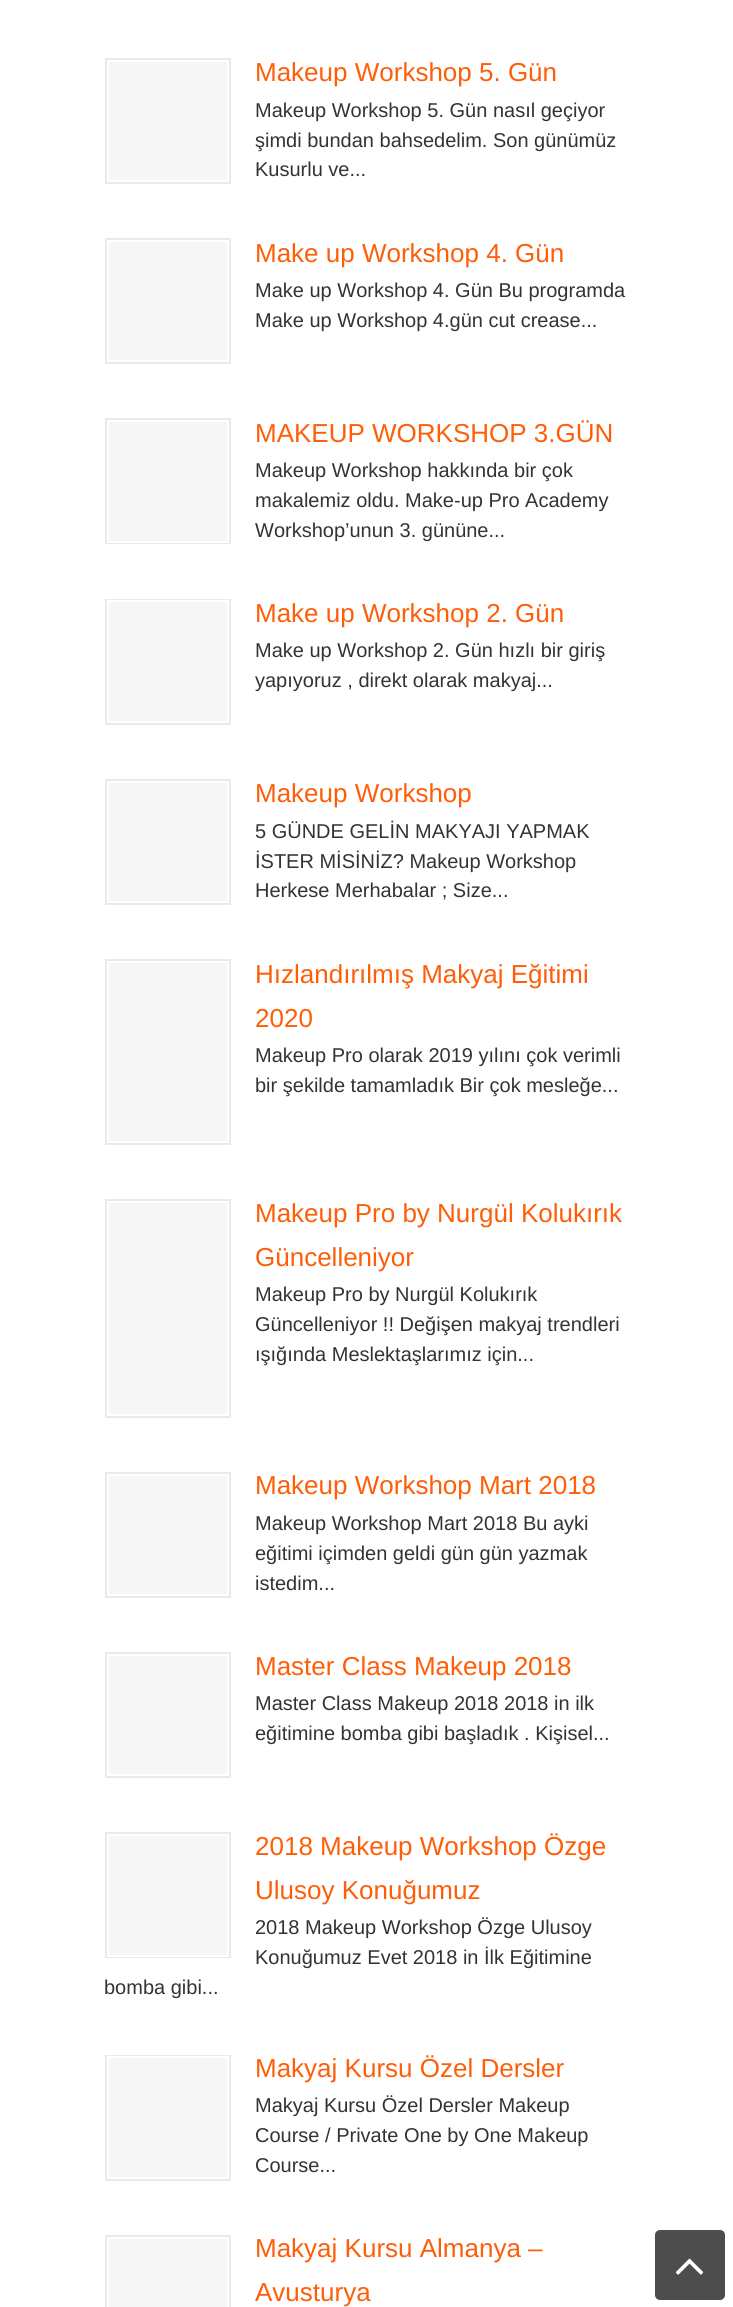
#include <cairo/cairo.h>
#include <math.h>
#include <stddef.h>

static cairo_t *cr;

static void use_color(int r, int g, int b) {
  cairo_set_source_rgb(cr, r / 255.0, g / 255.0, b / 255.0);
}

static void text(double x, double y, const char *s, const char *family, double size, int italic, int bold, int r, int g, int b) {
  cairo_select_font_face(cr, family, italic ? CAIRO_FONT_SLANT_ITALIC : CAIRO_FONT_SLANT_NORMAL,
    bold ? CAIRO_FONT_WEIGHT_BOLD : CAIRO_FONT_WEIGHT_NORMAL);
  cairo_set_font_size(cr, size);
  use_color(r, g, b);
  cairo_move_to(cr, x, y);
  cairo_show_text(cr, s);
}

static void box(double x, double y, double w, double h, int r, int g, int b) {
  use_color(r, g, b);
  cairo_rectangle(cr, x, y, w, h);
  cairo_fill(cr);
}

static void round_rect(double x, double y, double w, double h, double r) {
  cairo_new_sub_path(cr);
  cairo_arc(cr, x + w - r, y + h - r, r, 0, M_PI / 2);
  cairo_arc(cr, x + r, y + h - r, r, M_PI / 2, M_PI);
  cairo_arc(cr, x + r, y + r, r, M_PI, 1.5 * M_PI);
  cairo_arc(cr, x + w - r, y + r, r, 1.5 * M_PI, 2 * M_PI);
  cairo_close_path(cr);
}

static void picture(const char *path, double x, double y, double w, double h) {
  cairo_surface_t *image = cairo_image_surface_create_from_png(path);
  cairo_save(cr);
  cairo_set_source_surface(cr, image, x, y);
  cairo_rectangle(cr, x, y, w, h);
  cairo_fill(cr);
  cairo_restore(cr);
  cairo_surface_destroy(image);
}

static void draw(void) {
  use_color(255, 255, 255);
  cairo_paint(cr);
  box(109, 62, 118, 118, 246, 246, 246);
  cairo_rectangle(cr, 106, 59, 124, 124);
  use_color(234, 234, 234);
  cairo_stroke(cr);
  box(109, 242, 118, 118, 246, 246, 246);
  cairo_rectangle(cr, 106, 239, 124, 124);
  use_color(234, 234, 234);
  cairo_stroke(cr);
  box(109, 422, 118, 119, 246, 246, 246);
  cairo_rectangle(cr, 106, 419, 124, 124);
  use_color(234, 234, 234);
  cairo_stroke(cr);
  cairo_rectangle(cr, 108, 421, 120, 121);
  use_color(255, 255, 255);
  cairo_stroke(cr);
  box(109, 602, 118, 119, 246, 246, 246);
  cairo_rectangle(cr, 106, 600, 124, 124);
  use_color(234, 234, 234);
  cairo_stroke(cr);
  cairo_rectangle(cr, 108, 601, 120, 121);
  use_color(255, 255, 255);
  cairo_stroke(cr);
  box(109, 783, 118, 118, 246, 246, 246);
  cairo_rectangle(cr, 106, 780, 124, 124);
  use_color(234, 234, 234);
  cairo_stroke(cr);
  box(109, 963, 118, 178, 246, 246, 246);
  cairo_rectangle(cr, 106, 960, 124, 184);
  use_color(234, 234, 234);
  cairo_stroke(cr);
  box(109, 1203, 118, 211, 246, 246, 246);
  cairo_rectangle(cr, 106, 1200, 124, 217);
  use_color(234, 234, 234);
  cairo_stroke(cr);
  box(109, 1476, 118, 118, 246, 246, 246);
  cairo_rectangle(cr, 106, 1473, 124, 124);
  use_color(234, 234, 234);
  cairo_stroke(cr);
  box(109, 1656, 118, 118, 246, 246, 246);
  cairo_rectangle(cr, 106, 1653, 124, 124);
  use_color(234, 234, 234);
  cairo_stroke(cr);
  box(109, 1836, 118, 119, 246, 246, 246);
  cairo_rectangle(cr, 106, 1833, 124, 124);
  use_color(234, 234, 234);
  cairo_stroke(cr);
  cairo_rectangle(cr, 108, 1835, 120, 121);
  use_color(255, 255, 255);
  cairo_stroke(cr);
  box(109, 2058, 118, 119, 246, 246, 246);
  cairo_rectangle(cr, 106, 2056, 124, 124);
  use_color(234, 234, 234);
  cairo_stroke(cr);
  cairo_rectangle(cr, 108, 2057, 120, 121);
  use_color(255, 255, 255);
  cairo_stroke(cr);
  box(109, 2239, 118, 68, 246, 246, 246);
  cairo_rectangle(cr, 106, 2236, 124, 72);
  use_color(234, 234, 234);
  cairo_stroke(cr);
  use_color(77, 77, 77);
  round_rect(655, 2230, 70, 70, 5);
  cairo_fill(cr);
  picture("img_01.png", 675, 2258, 29, 17);
  text(255, 81, "Makeup Workshop 5. Gün", "Liberation Sans", 26, 0, 0, 254, 94, 8);
  text(255, 117, "Makeup Workshop 5. Gün nasıl geçiyor", "Liberation Sans", 20, 0, 0, 51, 51, 51);
  text(255, 147, "şimdi bundan bahsedelim. Son günümüz", "Liberation Sans", 20, 0, 0, 51, 51, 51);
  text(255, 176, "Kusurlu ve...", "Liberation Sans", 20, 0, 0, 51, 51, 51);
  text(255, 262, "Make up Workshop 4. Gün", "Liberation Sans", 26, 0, 0, 254, 94, 8);
  text(255, 297, "Make up Workshop 4. Gün Bu programda", "Liberation Sans", 20, 0, 0, 51, 51, 51);
  text(255, 327, "Make up Workshop 4.gün cut crease...", "Liberation Sans", 20, 0, 0, 51, 51, 51);
  text(255, 442, "MAKEUP WORKSHOP 3.GÜN", "Liberation Sans", 26, 0, 0, 254, 94, 8);
  text(255, 477, "Makeup Workshop hakkında bir çok", "Liberation Sans", 20, 0, 0, 51, 51, 51);
  text(255, 507, "makalemiz oldu. Make-up Pro Academy", "Liberation Sans", 20, 0, 0, 51, 51, 51);
  text(255, 537, "Workshop’unun 3. gününe...", "Liberation Sans", 20, 0, 0, 51, 51, 51);
  text(255, 622, "Make up Workshop 2. Gün", "Liberation Sans", 26, 0, 0, 254, 94, 8);
  text(255, 657, "Make up Workshop 2. Gün hızlı bir giriş", "Liberation Sans", 20, 0, 0, 51, 51, 51);
  text(255, 687, "yapıyoruz , direkt olarak makyaj...", "Liberation Sans", 20, 0, 0, 51, 51, 51);
  text(255, 802, "Makeup Workshop", "Liberation Sans", 26, 0, 0, 254, 94, 8);
  text(255, 838, "5 GÜNDE GELİN MAKYAJI YAPMAK", "Liberation Sans", 20, 0, 0, 51, 51, 51);
  text(255, 868, "İSTER MİSİNİZ? Makeup Workshop", "Liberation Sans", 20, 0, 0, 51, 51, 51);
  text(255, 897, "Herkese Merhabalar ; Size...", "Liberation Sans", 20, 0, 0, 51, 51, 51);
  text(255, 983, "Hızlandırılmış Makyaj Eğitimi", "Liberation Sans", 26, 0, 0, 254, 94, 8);
  text(255, 1027, "2020", "Liberation Sans", 26, 0, 0, 254, 94, 8);
  text(255, 1062, "Makeup Pro olarak 2019 yılını çok verimli", "Liberation Sans", 20, 0, 0, 51, 51, 51);
  text(255, 1092, "bir şekilde tamamladık Bir çok mesleğe...", "Liberation Sans", 20, 0, 0, 51, 51, 51);
  text(255, 1222, "Makeup Pro by Nurgül Kolukırık", "Liberation Sans", 26, 0, 0, 254, 94, 8);
  text(255, 1266, "Güncelleniyor", "Liberation Sans", 26, 0, 0, 254, 94, 8);
  text(255, 1301, "Makeup Pro by Nurgül Kolukırık", "Liberation Sans", 20, 0, 0, 51, 51, 51);
  text(255, 1331, "Güncelleniyor !! Değişen makyaj trendleri", "Liberation Sans", 20, 0, 0, 51, 51, 51);
  text(255, 1361, "ışığında Meslektaşlarımız için...", "Liberation Sans", 20, 0, 0, 51, 51, 51);
  text(255, 1494, "Makeup Workshop Mart 2018", "Liberation Sans", 26, 0, 0, 254, 94, 8);
  text(255, 1530, "Makeup Workshop Mart 2018 Bu ayki", "Liberation Sans", 20, 0, 0, 51, 51, 51);
  text(255, 1560, "eğitimi içimden geldi gün gün yazmak", "Liberation Sans", 20, 0, 0, 51, 51, 51);
  text(255, 1590, "istedim...", "Liberation Sans", 20, 0, 0, 51, 51, 51);
  text(255, 1675, "Master Class Makeup 2018", "Liberation Sans", 26, 0, 0, 254, 94, 8);
  text(255, 1710, "Master Class Makeup 2018 2018 in ilk", "Liberation Sans", 20, 0, 0, 51, 51, 51);
  text(255, 1740, "eğitimine bomba gibi başladık . Kişisel...", "Liberation Sans", 20, 0, 0, 51, 51, 51);
  text(255, 1855, "2018 Makeup Workshop Özge", "Liberation Sans", 26, 0, 0, 254, 94, 8);
  text(255, 1899, "Ulusoy Konuğumuz", "Liberation Sans", 26, 0, 0, 254, 94, 8);
  text(255, 1934, "2018 Makeup Workshop Özge Ulusoy", "Liberation Sans", 20, 0, 0, 51, 51, 51);
  text(255, 1964, "Konuğumuz Evet 2018 in İlk Eğitimine", "Liberation Sans", 20, 0, 0, 51, 51, 51);
  text(104, 1994, "bomba gibi...", "Liberation Sans", 20, 0, 0, 51, 51, 51);
  text(255, 2077, "Makyaj Kursu Özel Dersler", "Liberation Sans", 26, 0, 0, 254, 94, 8);
  text(255, 2112, "Makyaj Kursu Özel Dersler Makeup", "Liberation Sans", 20, 0, 0, 51, 51, 51);
  text(255, 2142, "Course / Private One by One Makeup", "Liberation Sans", 20, 0, 0, 51, 51, 51);
  text(255, 2172, "Course...", "Liberation Sans", 20, 0, 0, 51, 51, 51);
  text(255, 2257, "Makyaj Kursu Almanya –", "Liberation Sans", 26, 0, 0, 254, 94, 8);
  text(255, 2301, "Avusturya", "Liberation Sans", 26, 0, 0, 254, 94, 8);
}

int main(void) {
  cairo_surface_t *surface = cairo_image_surface_create(CAIRO_FORMAT_RGB24, 733, 2307);
  cr = cairo_create(surface);
  cairo_font_options_t *options = cairo_font_options_create();
  cairo_font_options_set_hint_metrics(options, CAIRO_HINT_METRICS_OFF);
  cairo_font_options_set_hint_style(options, CAIRO_HINT_STYLE_NONE);
  cairo_set_font_options(cr, options);
  cairo_set_miter_limit(cr, 4);
  draw();
  cairo_surface_write_to_png(surface, "out.png");
  cairo_font_options_destroy(options);
  cairo_destroy(cr);
  cairo_surface_destroy(surface);
  return 0;
}
